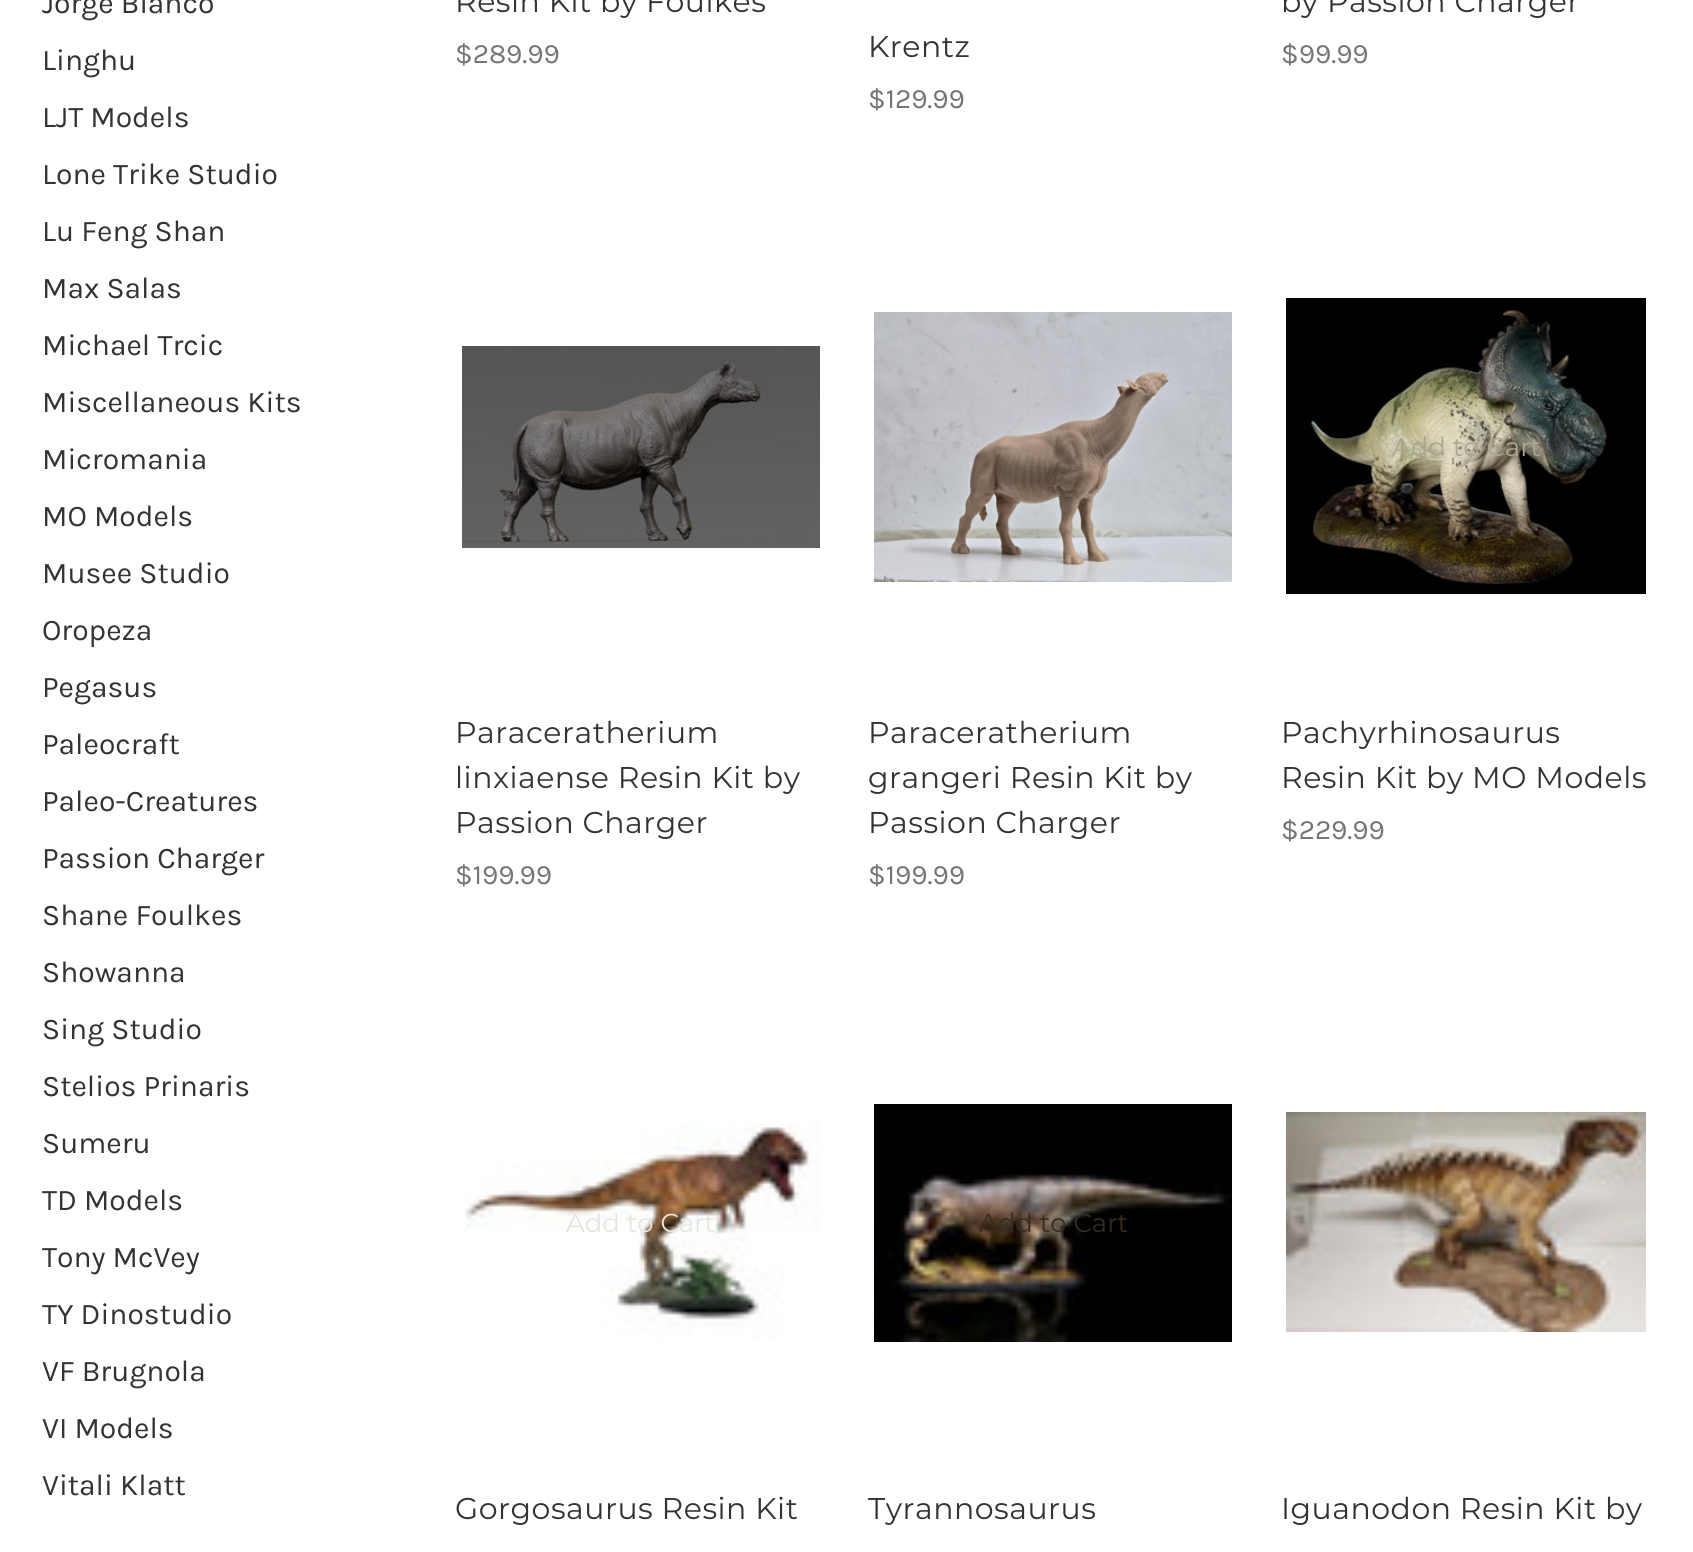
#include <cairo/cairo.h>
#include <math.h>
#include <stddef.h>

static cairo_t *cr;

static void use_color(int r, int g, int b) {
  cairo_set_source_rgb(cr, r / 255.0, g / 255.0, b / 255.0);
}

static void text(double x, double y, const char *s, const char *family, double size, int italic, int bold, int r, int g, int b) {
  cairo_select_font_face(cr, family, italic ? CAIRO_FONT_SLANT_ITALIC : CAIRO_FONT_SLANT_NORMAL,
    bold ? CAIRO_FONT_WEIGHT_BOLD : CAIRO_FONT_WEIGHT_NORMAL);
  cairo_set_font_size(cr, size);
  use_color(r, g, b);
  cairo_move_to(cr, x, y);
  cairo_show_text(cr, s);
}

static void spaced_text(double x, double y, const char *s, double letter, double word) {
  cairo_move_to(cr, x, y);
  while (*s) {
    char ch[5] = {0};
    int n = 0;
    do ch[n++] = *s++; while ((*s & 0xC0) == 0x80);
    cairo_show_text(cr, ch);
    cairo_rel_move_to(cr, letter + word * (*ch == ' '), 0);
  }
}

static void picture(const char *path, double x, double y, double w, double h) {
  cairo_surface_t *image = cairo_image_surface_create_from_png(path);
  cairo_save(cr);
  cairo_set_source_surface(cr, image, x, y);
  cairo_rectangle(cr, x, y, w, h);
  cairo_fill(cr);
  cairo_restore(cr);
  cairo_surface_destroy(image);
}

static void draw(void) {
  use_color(255, 255, 255);
  cairo_paint(cr);
  picture("img_01.png", 462, 346, 358, 202);
  picture("img_02.png", 874, 312, 358, 270);
  picture("img_03.png", 1286, 298, 360, 296);
  picture("img_04.png", 462, 1123, 358, 216);
  picture("img_05.png", 874, 1104, 358, 238);
  picture("img_06.png", 1286, 1112, 360, 220);
  text(42, 13, "Jorge Blanco", "Karla", 30, 0, 0, 51, 51, 51);
  text(42, 70, "Linghu", "Karla", 30, 0, 0, 51, 51, 51);
  text(42, 127, "LJT Models", "Karla", 30, 0, 0, 51, 51, 51);
  text(42, 184, "Lone Trike Studio", "Karla", 30, 0, 0, 51, 51, 51);
  text(42, 241, "Lu Feng Shan", "Karla", 30, 0, 0, 51, 51, 51);
  text(42, 298, "Max Salas", "Karla", 30, 0, 0, 51, 51, 51);
  text(42, 355, "Michael Trcic", "Karla", 30, 0, 0, 51, 51, 51);
  text(42, 412, "Miscellaneous Kits", "Karla", 30, 0, 0, 51, 51, 51);
  text(42, 469, "Micromania", "Karla", 30, 0, 0, 51, 51, 51);
  text(42, 526, "MO Models", "Karla", 30, 0, 0, 51, 51, 51);
  text(42, 583, "Musee Studio", "Karla", 30, 0, 0, 51, 51, 51);
  text(42, 640, "Oropeza", "Karla", 30, 0, 0, 51, 51, 51);
  text(42, 697, "Pegasus", "Karla", 30, 0, 0, 51, 51, 51);
  text(42, 754, "Paleocraft", "Karla", 30, 0, 0, 51, 51, 51);
  text(42, 811, "Paleo-Creatures", "Karla", 30, 0, 0, 51, 51, 51);
  text(42, 868, "Passion Charger", "Karla", 30, 0, 0, 51, 51, 51);
  text(42, 925, "Shane Foulkes", "Karla", 30, 0, 0, 51, 51, 51);
  text(42, 982, "Showanna", "Karla", 30, 0, 0, 51, 51, 51);
  text(42, 1039, "Sing Studio", "Karla", 30, 0, 0, 51, 51, 51);
  text(42, 1096, "Stelios Prinaris", "Karla", 30, 0, 0, 51, 51, 51);
  text(42, 1153, "Sumeru", "Karla", 30, 0, 0, 51, 51, 51);
  text(42, 1210, "TD Models", "Karla", 30, 0, 0, 51, 51, 51);
  text(42, 1267, "Tony McVey", "Karla", 30, 0, 0, 51, 51, 51);
  text(42, 1324, "TY Dinostudio", "Karla", 30, 0, 0, 51, 51, 51);
  text(42, 1381, "VF Brugnola", "Karla", 30, 0, 0, 51, 51, 51);
  text(42, 1438, "VI Models", "Karla", 30, 0, 0, 51, 51, 51);
  text(42, 1495, "Vitali Klatt", "Karla", 30, 0, 0, 51, 51, 51);
  cairo_select_font_face(cr, "Montserrat", CAIRO_FONT_SLANT_NORMAL, CAIRO_FONT_WEIGHT_NORMAL);
  spaced_text(455, 12, "Resin Kit by Foulkes", 0.5, 0);
  text(455, 63, "$289.99", "Karla", 28, 0, 0, 117, 117, 117);
  cairo_select_font_face(cr, "Montserrat", CAIRO_FONT_SLANT_NORMAL, CAIRO_FONT_WEIGHT_NORMAL);
  cairo_set_font_size(cr, 30);
  use_color(51, 51, 51);
  spaced_text(868, 57, "Krentz", 0.5, 0);
  text(868, 108, "$129.99", "Karla", 28, 0, 0, 117, 117, 117);
  cairo_select_font_face(cr, "Montserrat", CAIRO_FONT_SLANT_NORMAL, CAIRO_FONT_WEIGHT_NORMAL);
  cairo_set_font_size(cr, 30);
  use_color(51, 51, 51);
  spaced_text(1281, 12, "by Passion Charger", 0.5, 0);
  text(1281, 63, "$99.99", "Karla", 28, 0, 0, 117, 117, 117);
  cairo_select_font_face(cr, "Montserrat", CAIRO_FONT_SLANT_NORMAL, CAIRO_FONT_WEIGHT_NORMAL);
  cairo_set_font_size(cr, 30);
  use_color(51, 51, 51);
  spaced_text(455, 743, "Paraceratherium", 0.5, 0);
  spaced_text(455, 788, "linxiaense Resin Kit by", 0.5, 0);
  spaced_text(455, 833, "Passion Charger", 0.5, 0);
  text(455, 884, "$199.99", "Karla", 28, 0, 0, 117, 117, 117);
  cairo_select_font_face(cr, "Montserrat", CAIRO_FONT_SLANT_NORMAL, CAIRO_FONT_WEIGHT_NORMAL);
  cairo_set_font_size(cr, 30);
  use_color(51, 51, 51);
  spaced_text(868, 743, "Paraceratherium", 0.5, 0);
  spaced_text(868, 788, "grangeri Resin Kit by", 0.5, 0);
  spaced_text(868, 833, "Passion Charger", 0.5, 0);
  text(868, 884, "$199.99", "Karla", 28, 0, 0, 117, 117, 117);
  text(1392, 456, "Add to Cart", "Montserrat", 26, 0, 0, 170, 166, 143);
  cairo_set_font_size(cr, 30);
  use_color(51, 51, 51);
  spaced_text(1281, 743, "Pachyrhinosaurus", 0.5, 0);
  spaced_text(1281, 788, "Resin Kit by MO Models", 0.5, 0);
  text(1281, 839, "$229.99", "Karla", 28, 0, 0, 117, 117, 117);
  text(566, 1232, "Add to Cart", "Montserrat", 26, 0, 0, 232, 228, 223);
  cairo_set_font_size(cr, 30);
  use_color(51, 51, 51);
  spaced_text(455, 1519, "Gorgosaurus Resin Kit", 0.5, 0);
  text(979, 1232, "Add to Cart", "Montserrat", 26, 0, 0, 54, 43, 33);
  cairo_set_font_size(cr, 30);
  use_color(51, 51, 51);
  spaced_text(868, 1519, "Tyrannosaurus", 0.5, 0);
  spaced_text(1281, 1519, "Iguanodon Resin Kit by", 0.5, 0);
}

int main(void) {
  cairo_surface_t *surface = cairo_image_surface_create(CAIRO_FORMAT_RGB24, 1693, 1552);
  cr = cairo_create(surface);
  cairo_font_options_t *options = cairo_font_options_create();
  cairo_font_options_set_hint_metrics(options, CAIRO_HINT_METRICS_OFF);
  cairo_font_options_set_hint_style(options, CAIRO_HINT_STYLE_NONE);
  cairo_set_font_options(cr, options);
  cairo_set_miter_limit(cr, 4);
  draw();
  cairo_surface_write_to_png(surface, "out.png");
  cairo_font_options_destroy(options);
  cairo_destroy(cr);
  cairo_surface_destroy(surface);
  return 0;
}
